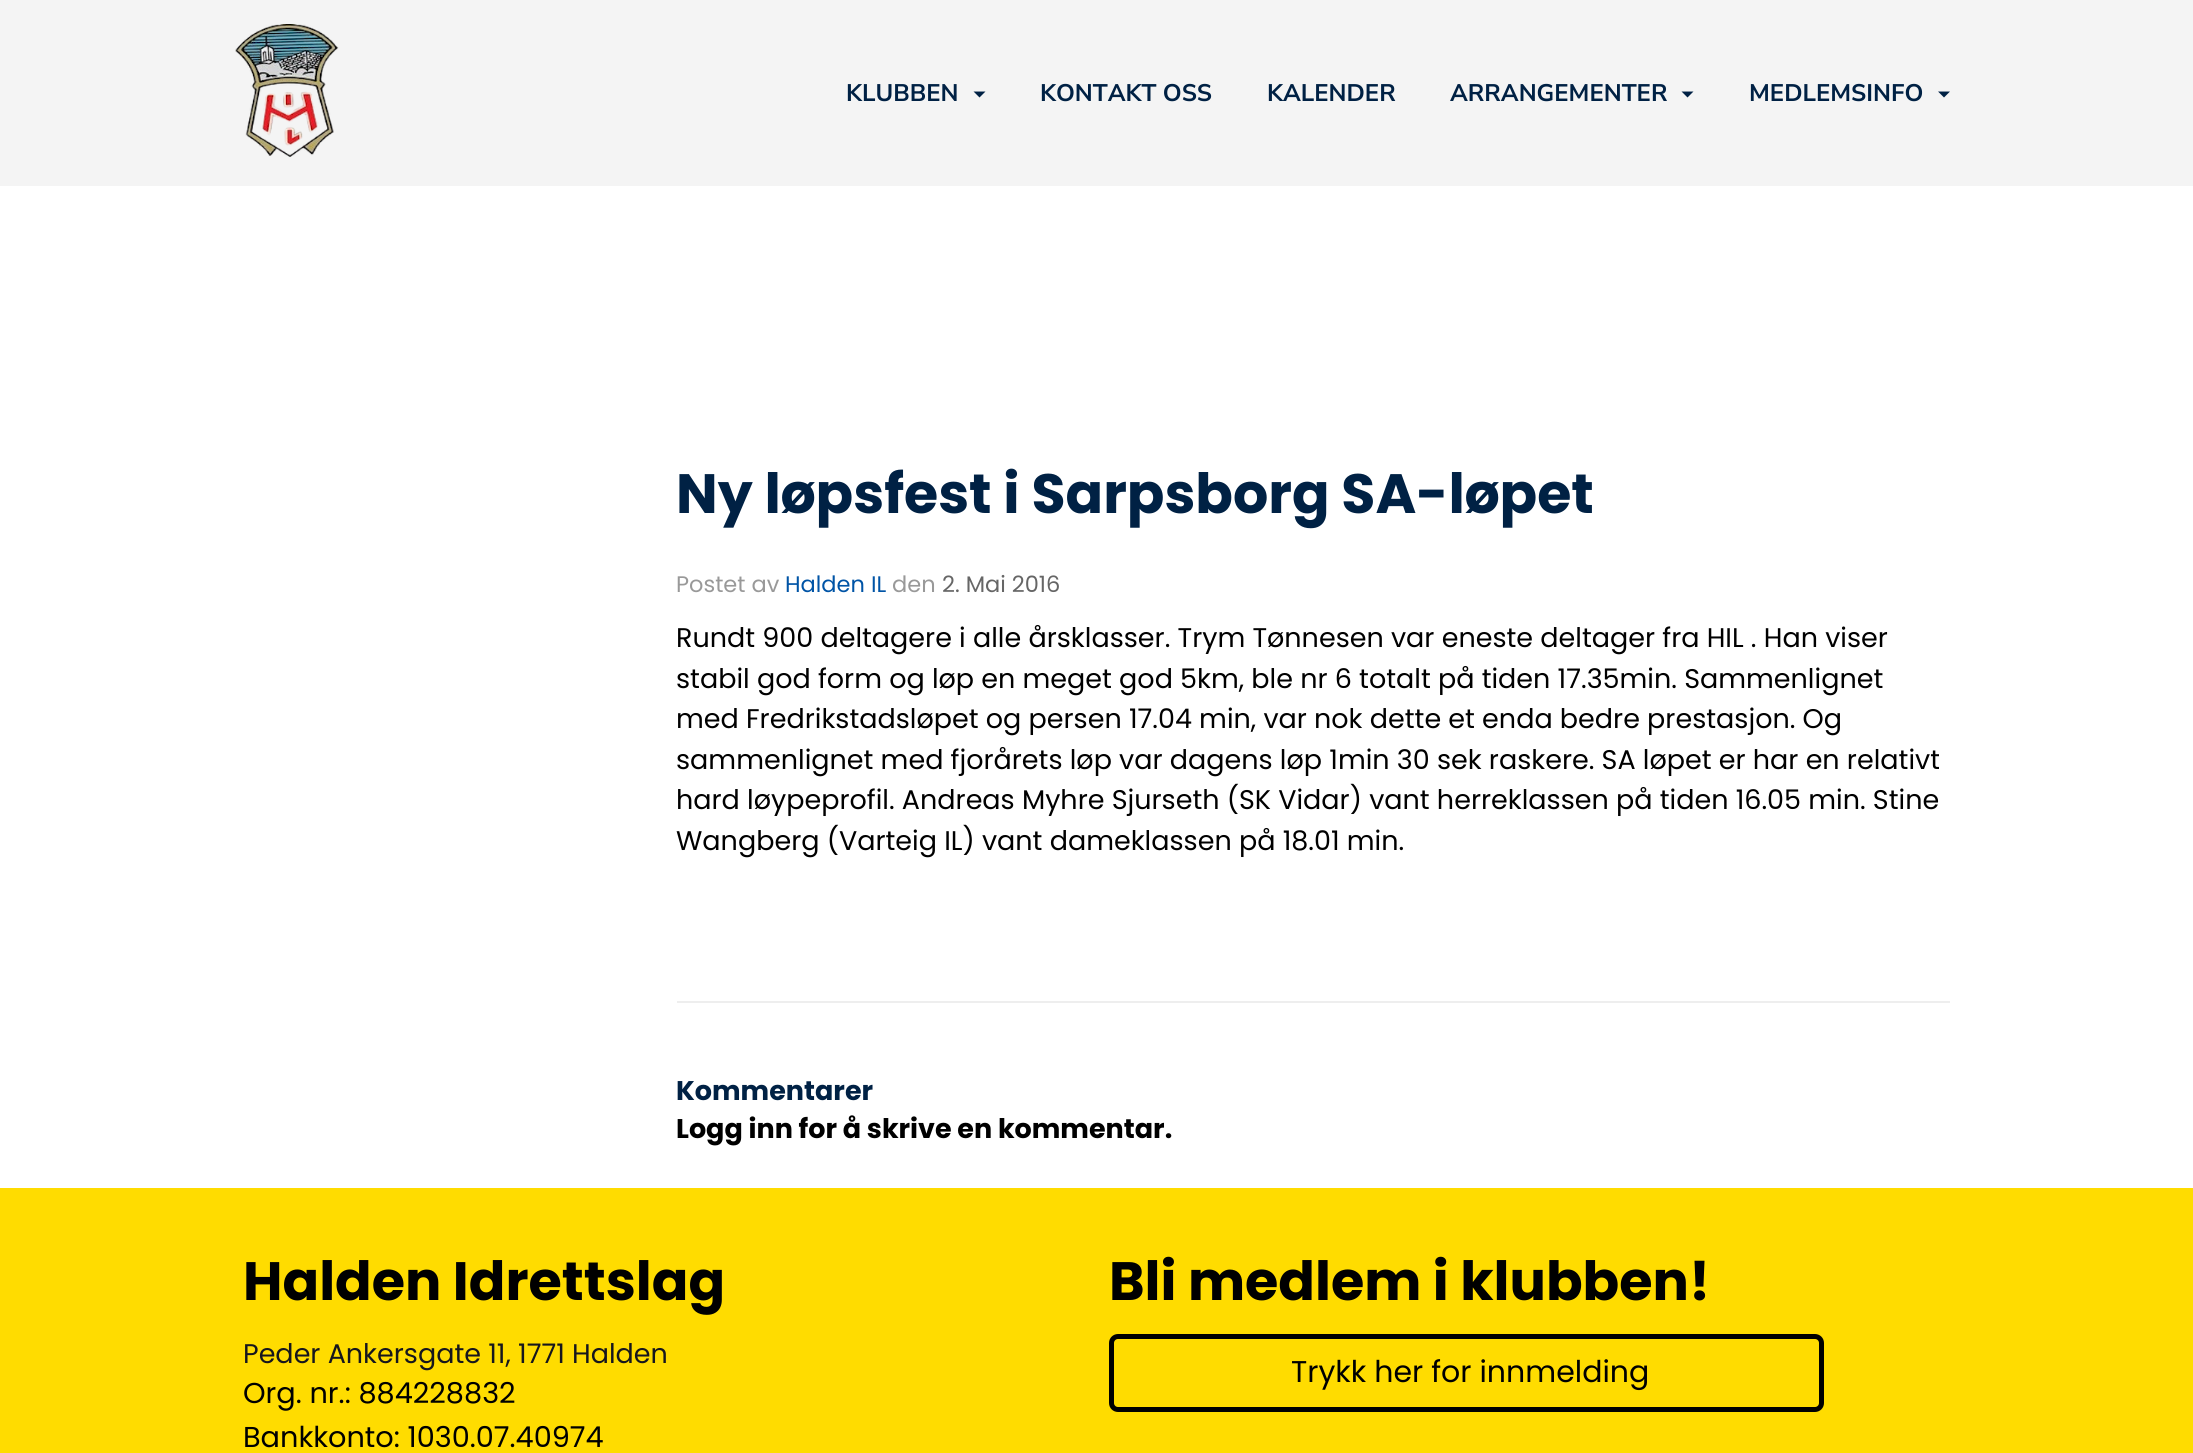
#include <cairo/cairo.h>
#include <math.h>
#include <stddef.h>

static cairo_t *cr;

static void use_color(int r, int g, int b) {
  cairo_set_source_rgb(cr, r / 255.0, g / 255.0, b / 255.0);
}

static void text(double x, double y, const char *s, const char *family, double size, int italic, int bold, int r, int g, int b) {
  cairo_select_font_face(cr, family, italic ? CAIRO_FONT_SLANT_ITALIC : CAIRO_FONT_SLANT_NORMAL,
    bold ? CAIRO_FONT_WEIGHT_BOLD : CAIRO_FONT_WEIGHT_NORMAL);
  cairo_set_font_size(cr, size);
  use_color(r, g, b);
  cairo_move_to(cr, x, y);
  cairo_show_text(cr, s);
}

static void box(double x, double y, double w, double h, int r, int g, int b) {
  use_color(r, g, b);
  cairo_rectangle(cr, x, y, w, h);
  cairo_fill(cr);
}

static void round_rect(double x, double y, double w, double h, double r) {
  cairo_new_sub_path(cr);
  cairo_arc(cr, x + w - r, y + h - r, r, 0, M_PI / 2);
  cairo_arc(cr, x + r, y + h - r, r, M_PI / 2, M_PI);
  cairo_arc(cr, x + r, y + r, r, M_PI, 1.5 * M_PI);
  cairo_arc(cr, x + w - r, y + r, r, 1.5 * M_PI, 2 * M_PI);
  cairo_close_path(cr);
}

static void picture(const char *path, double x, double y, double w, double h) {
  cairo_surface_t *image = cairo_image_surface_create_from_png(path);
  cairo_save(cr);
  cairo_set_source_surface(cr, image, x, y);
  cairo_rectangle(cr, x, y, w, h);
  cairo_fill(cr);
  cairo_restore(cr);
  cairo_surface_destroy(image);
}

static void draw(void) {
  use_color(255, 255, 255);
  cairo_paint(cr);
  box(0, 0, 2193, 186, 244, 244, 244);
  picture("img_01.png", 235, 24, 104, 133);
  use_color(0, 33, 68);
  cairo_new_path(cr);
  cairo_move_to(cr, 973.5, 91.5);
  cairo_line_to(cr, 985.5, 91.5);
  cairo_line_to(cr, 979.5, 97.5);
  cairo_close_path(cr);
  cairo_fill(cr);
  cairo_new_path(cr);
  cairo_move_to(cr, 1681.5, 91.5);
  cairo_line_to(cr, 1693.5, 91.5);
  cairo_line_to(cr, 1687.5, 97.5);
  cairo_close_path(cr);
  cairo_fill(cr);
  cairo_new_path(cr);
  cairo_move_to(cr, 1938, 91.5);
  cairo_line_to(cr, 1950, 91.5);
  cairo_line_to(cr, 1944, 97.5);
  cairo_close_path(cr);
  cairo_fill(cr);
  box(677, 1001, 1273, 2, 238, 238, 238);
  box(0, 1188, 2193, 265, 255, 220, 0);
  round_rect(1111.5, 1336.5, 710, 73, 6.5);
  use_color(0, 0, 0);
  cairo_set_line_width(cr, 5);
  cairo_stroke(cr);
  text(846, 101, "KLUBBEN", "Nunito Sans", 24, 0, 1, 0, 33, 68);
  text(1040, 101, "KONTAKT OSS", "Nunito Sans", 24, 0, 1, 0, 33, 68);
  text(1267, 101, "KALENDER", "Nunito Sans", 24, 0, 1, 0, 33, 68);
  text(1450, 101, "ARRANGEMENTER", "Nunito Sans", 24, 0, 1, 0, 33, 68);
  text(1749, 101, "MEDLEMSINFO", "Nunito Sans", 24, 0, 1, 0, 33, 68);
  text(676, 513, "Ny løpsfest i Sarpsborg SA-løpet", "Poppins", 55.4, 0, 1, 0, 33, 68);
  text(676, 592, "Postet av", "Poppins", 22.5, 0, 0, 153, 153, 153);
  text(785, 592, "Halden IL", "Poppins", 22.5, 0, 0, 0, 84, 166);
  text(892, 592, "den", "Poppins", 22.5, 0, 0, 153, 153, 153);
  text(942, 592, "2. Mai 2016", "Poppins", 22.5, 0, 0, 102, 102, 102);
  text(676, 647, "Rundt 900 deltagere i alle årsklasser. Trym Tønnesen var eneste deltager fra HIL . Han viser", "Poppins", 27, 0, 0, 0, 0, 0);
  text(676, 688, "stabil god form og løp en meget god 5km, ble nr 6 totalt på tiden 17.35min. Sammenlignet", "Poppins", 27, 0, 0, 0, 0, 0);
  text(676, 728, "med Fredrikstadsløpet og persen 17.04 min, var nok dette et enda bedre prestasjon. Og", "Poppins", 27, 0, 0, 0, 0, 0);
  text(676, 769, "sammenlignet med fjorårets løp var dagens løp 1min 30 sek raskere. SA løpet er har en relativt", "Poppins", 27, 0, 0, 0, 0, 0);
  text(676, 809, "hard løypeprofil. Andreas Myhre Sjurseth (SK Vidar) vant herreklassen på tiden 16.05 min. Stine", "Poppins", 27, 0, 0, 0, 0, 0);
  text(676, 850, "Wangberg (Varteig IL) vant dameklassen på 18.01 min.", "Poppins", 27, 0, 0, 0, 0, 0);
  text(676, 1100, "Kommentarer", "Poppins", 27, 0, 1, 0, 33, 68);
  text(676, 1138, "Logg inn for å skrive en kommentar.", "Poppins", 27, 0, 1, 0, 0, 0);
  text(243, 1300, "Halden Idrettslag", "Poppins", 54, 0, 1, 0, 0, 0);
  text(243, 1363, "Peder Ankersgate 11, 1771 Halden", "Poppins", 27, 0, 0, 22, 22, 29);
  text(243, 1403, "Org. nr.: 884228832", "Poppins", 28.75, 0, 0, 0, 0, 0);
  text(243, 1447, "Bankkonto: 1030.07.40974", "Poppins", 28.75, 0, 0, 0, 0, 0);
  text(1109, 1300, "Bli medlem i klubben!", "Poppins", 54, 0, 1, 0, 0, 0);
  text(1291, 1382, "Trykk her for innmelding", "Poppins", 30, 0, 0, 0, 0, 0);
}

int main(void) {
  cairo_surface_t *surface = cairo_image_surface_create(CAIRO_FORMAT_RGB24, 2193, 1453);
  cr = cairo_create(surface);
  cairo_font_options_t *options = cairo_font_options_create();
  cairo_font_options_set_hint_metrics(options, CAIRO_HINT_METRICS_OFF);
  cairo_font_options_set_hint_style(options, CAIRO_HINT_STYLE_NONE);
  cairo_set_font_options(cr, options);
  cairo_set_miter_limit(cr, 4);
  draw();
  cairo_surface_write_to_png(surface, "out.png");
  cairo_font_options_destroy(options);
  cairo_destroy(cr);
  cairo_surface_destroy(surface);
  return 0;
}
